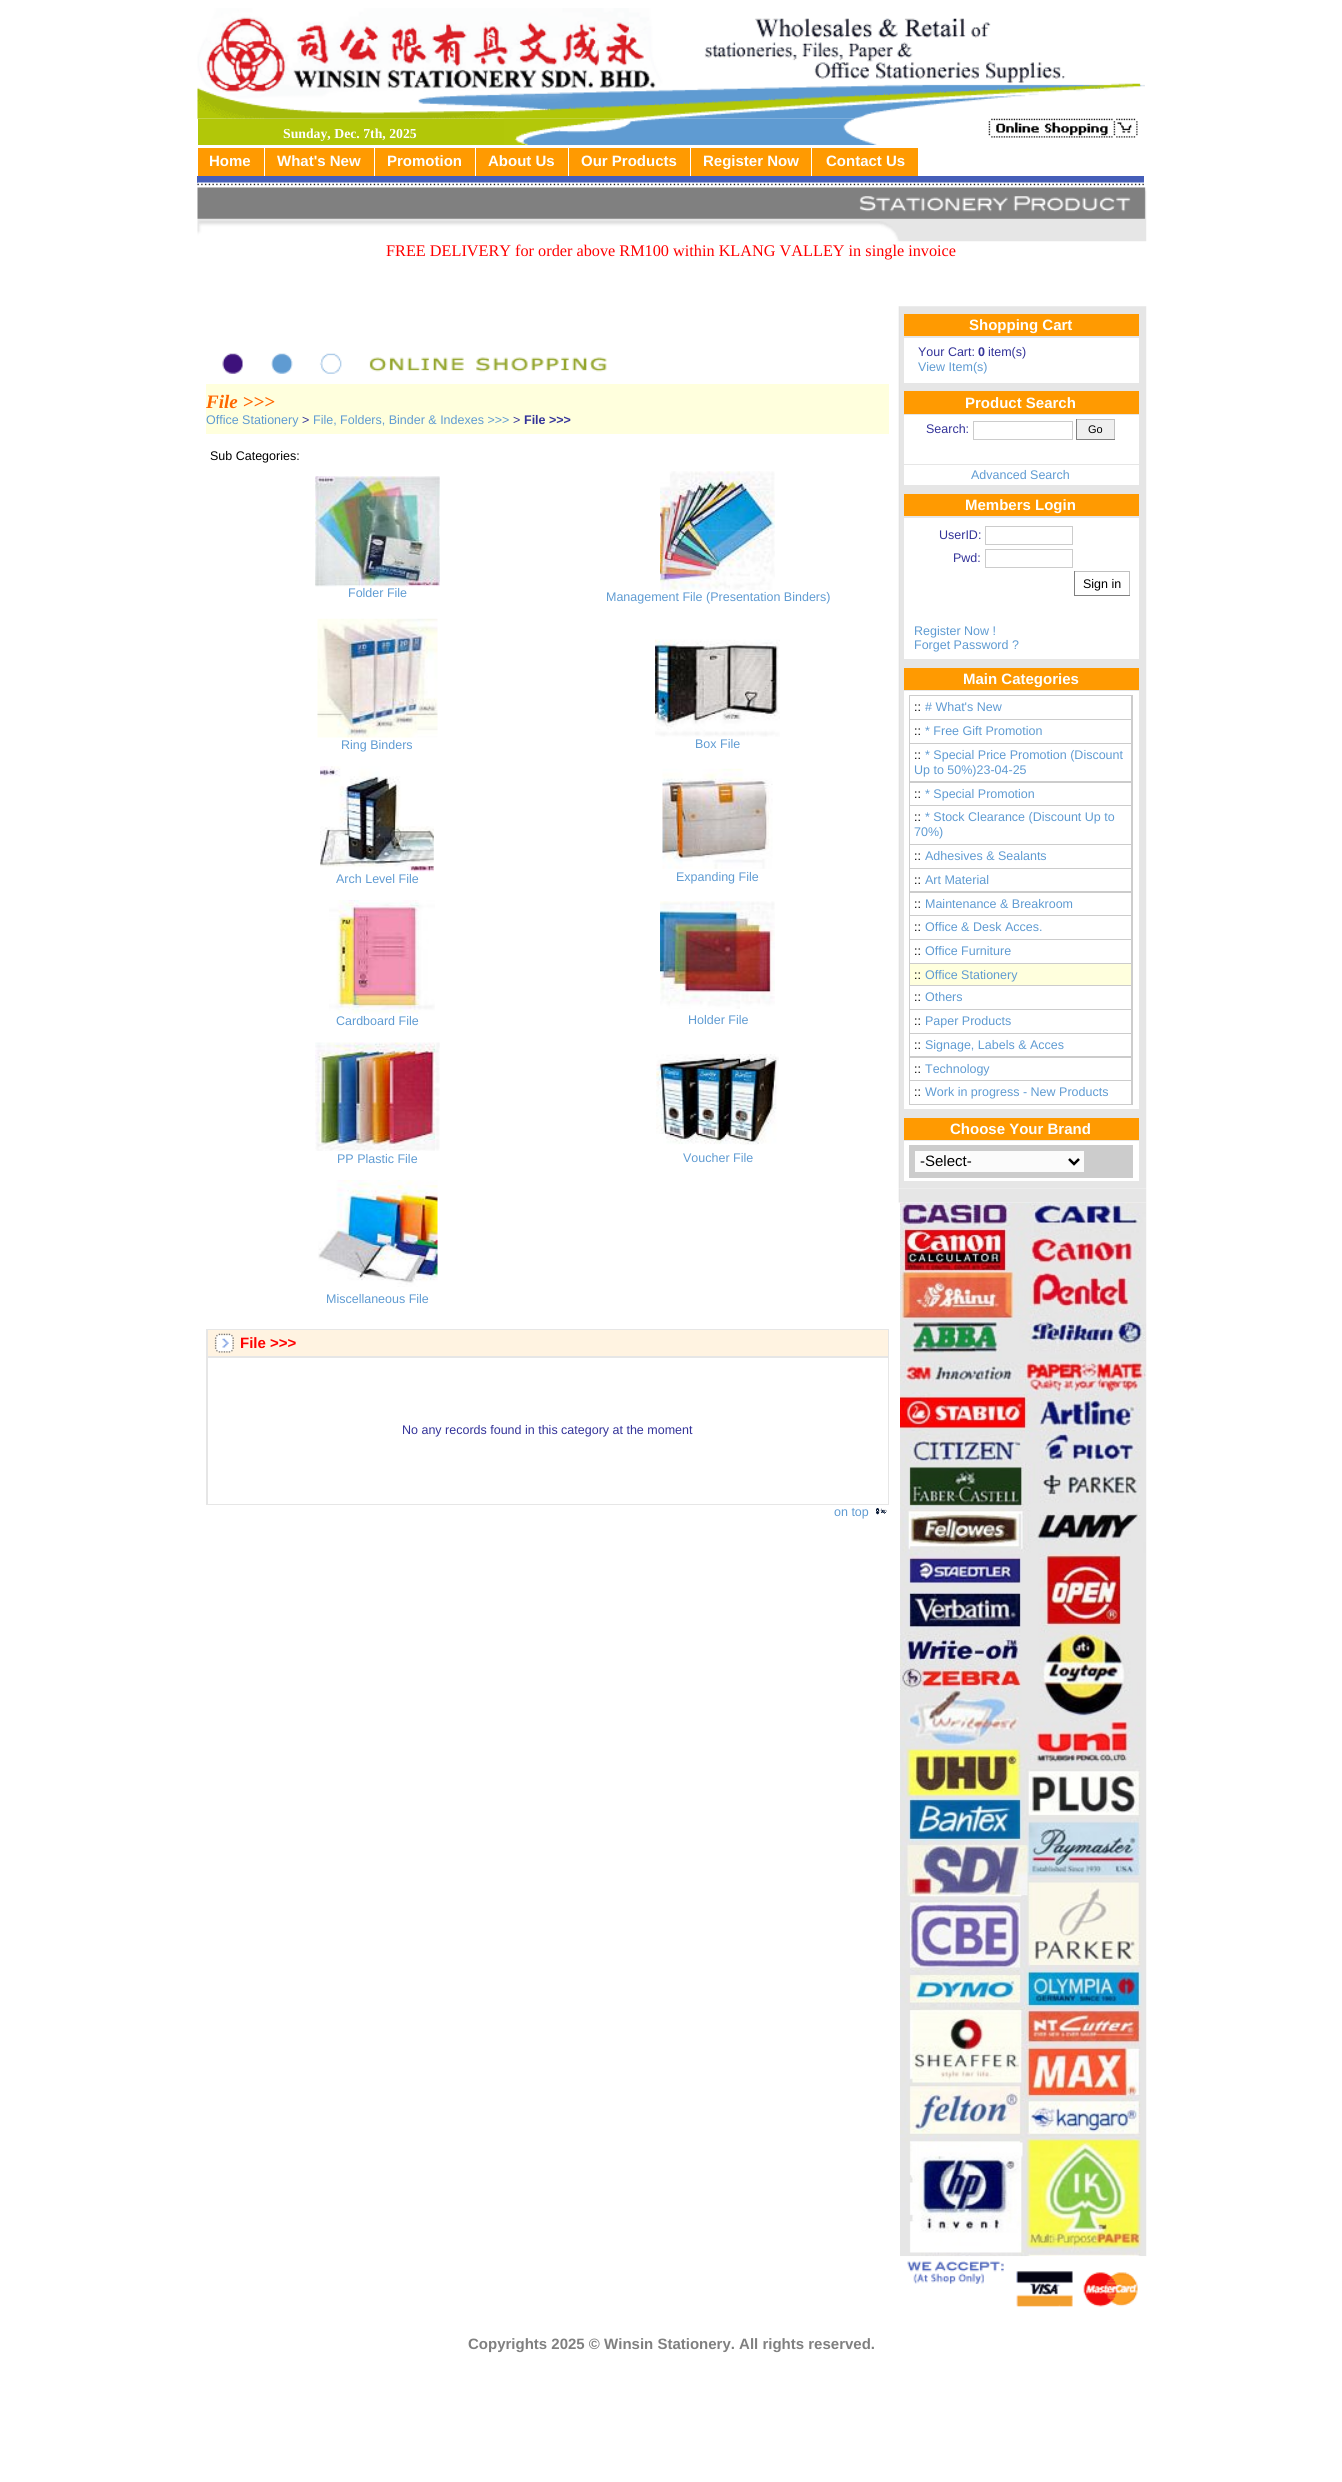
#include <cairo/cairo.h>
#include <math.h>
#include <stddef.h>

static cairo_t *cr;

static void use_color(int r, int g, int b) {
  cairo_set_source_rgb(cr, r / 255.0, g / 255.0, b / 255.0);
}

static void text(double x, double y, const char *s, const char *family, double size, int italic, int bold, int r, int g, int b) {
  cairo_select_font_face(cr, family, italic ? CAIRO_FONT_SLANT_ITALIC : CAIRO_FONT_SLANT_NORMAL,
    bold ? CAIRO_FONT_WEIGHT_BOLD : CAIRO_FONT_WEIGHT_NORMAL);
  cairo_set_font_size(cr, size);
  use_color(r, g, b);
  cairo_move_to(cr, x, y);
  cairo_show_text(cr, s);
}

static void box(double x, double y, double w, double h, int r, int g, int b) {
  use_color(r, g, b);
  cairo_rectangle(cr, x, y, w, h);
  cairo_fill(cr);
}

static void picture(const char *path, double x, double y, double w, double h) {
  cairo_surface_t *image = cairo_image_surface_create_from_png(path);
  cairo_save(cr);
  cairo_set_source_surface(cr, image, x, y);
  cairo_rectangle(cr, x, y, w, h);
  cairo_fill(cr);
  cairo_restore(cr);
  cairo_surface_destroy(image);
}

static void draw(void) {
  use_color(255, 255, 255);
  cairo_paint(cr);
  picture("img_01.png", 197, 8, 948, 111);
  box(198, 119, 306, 26, 178, 199, 8);
  picture("img_02.png", 503, 118, 374, 27);
  picture("img_03.png", 988, 118, 150, 20);
  box(198, 148, 66, 28, 255, 154, 1);
  box(265, 148, 109, 28, 255, 154, 1);
  box(375, 148, 100, 28, 255, 154, 1);
  box(476, 148, 92, 28, 255, 154, 1);
  box(569, 148, 121, 28, 255, 154, 1);
  box(691, 148, 227, 28, 255, 154, 1);
  box(811, 148, 1, 28, 255, 255, 255);
  box(197, 176, 947, 7, 69, 94, 185);
  picture("img_04.png", 197, 182, 950, 60);
  picture("img_05.png", 222, 353, 385, 21);
  box(206, 384, 683, 50, 255, 255, 221);
  picture("img_06.png", 315, 476, 125, 111);
  picture("img_07.png", 660, 471, 115, 119);
  picture("img_08.png", 317, 618, 121, 120);
  picture("img_09.png", 655, 639, 125, 98);
  picture("img_10.png", 320, 766, 114, 106);
  picture("img_11.png", 662, 768, 111, 101);
  picture("img_12.png", 329, 900, 106, 114);
  picture("img_13.png", 660, 901, 115, 108);
  picture("img_14.png", 315, 1042, 125, 109);
  picture("img_15.png", 656, 1054, 123, 91);
  picture("img_16.png", 318, 1180, 120, 107);
  box(206, 1329, 683, 176, 230, 230, 230);
  box(208, 1330, 680, 26, 255, 243, 225);
  picture("img_17.png", 214, 1333, 20, 20);
  box(208, 1358, 680, 146, 255, 255, 255);
  picture("img_18.png", 876, 1508, 11, 7);
  picture("img_19.png", 898, 306, 249, 883);
  box(904, 314, 235, 22, 255, 154, 1);
  box(904, 338, 235, 45, 255, 255, 255);
  box(904, 391, 235, 23, 255, 154, 1);
  box(904, 415, 235, 49, 255, 255, 255);
  cairo_rectangle(cr, 973.5, 421.5, 99, 18);
  use_color(204, 204, 204);
  cairo_set_line_width(cr, 1);
  cairo_stroke(cr);
  box(1077, 420, 37, 19, 239, 239, 239);
  box(1076, 419, 39, 1, 192, 192, 192);
  box(1114, 419, 1, 21, 192, 192, 192);
  box(1076, 439, 39, 1, 128, 128, 128);
  box(1076, 419, 1, 21, 128, 128, 128);
  box(904, 465, 235, 20, 255, 255, 255);
  box(904, 494, 235, 22, 255, 154, 1);
  box(904, 518, 235, 141, 255, 255, 255);
  cairo_rectangle(cr, 985.5, 526.5, 87, 18);
  use_color(204, 204, 204);
  cairo_stroke(cr);
  cairo_rectangle(cr, 985.5, 549.5, 87, 18);
  cairo_stroke(cr);
  box(1074, 571, 56, 1, 192, 192, 192);
  box(1129, 571, 1, 25, 192, 192, 192);
  box(1074, 595, 56, 1, 128, 128, 128);
  box(1074, 571, 1, 25, 128, 128, 128);
  box(904, 668, 235, 22, 255, 154, 1);
  box(904, 691, 235, 418, 255, 255, 255);
  box(909, 695, 224, 410, 204, 204, 204);
  box(910, 696, 221, 23, 255, 255, 255);
  box(910, 720, 221, 23, 255, 255, 255);
  box(910, 744, 221, 37, 255, 255, 255);
  box(910, 783, 221, 22, 255, 255, 255);
  box(910, 806, 221, 38, 255, 255, 255);
  box(910, 845, 221, 23, 255, 255, 255);
  box(910, 869, 221, 22, 255, 255, 255);
  box(910, 893, 221, 22, 255, 255, 255);
  box(910, 916, 221, 23, 255, 255, 255);
  box(910, 940, 221, 23, 255, 255, 255);
  box(910, 964, 221, 21, 255, 255, 221);
  box(910, 986, 221, 23, 255, 255, 255);
  box(910, 1010, 221, 23, 255, 255, 255);
  box(910, 1034, 221, 22, 255, 255, 255);
  box(910, 1058, 221, 22, 255, 255, 255);
  box(910, 1081, 221, 23, 255, 255, 255);
  box(904, 1118, 235, 22, 255, 154, 1);
  box(904, 1141, 235, 40, 255, 255, 255);
  box(909, 1145, 224, 33, 204, 204, 204);
  box(915, 1151, 169, 21, 251, 251, 251);
  cairo_new_path(cr);
  cairo_move_to(cr, 1069, 1159);
  cairo_line_to(cr, 1074, 1164);
  cairo_line_to(cr, 1079, 1159);
  use_color(0, 0, 0);
  cairo_set_line_width(cr, 2.5);
  cairo_stroke(cr);
  picture("img_20.png", 898, 1189, 249, 14);
  picture("img_21.png", 900, 1202, 247, 1055);
  picture("img_22.png", 900, 2256, 246, 51);
  text(283, 138, "Sunday, Dec. 7th, 2025", "Liberation Serif", 13.75, 0, 1, 255, 255, 255);
  text(209, 166, "Home", "Liberation Sans", 15, 0, 1, 255, 255, 255);
  text(277, 166, "What's New", "Liberation Sans", 15, 0, 1, 255, 255, 255);
  text(387, 166, "Promotion", "Liberation Sans", 15, 0, 1, 255, 255, 255);
  text(488, 166, "About Us", "Liberation Sans", 15, 0, 1, 255, 255, 255);
  text(581, 166, "Our Products", "Liberation Sans", 15, 0, 1, 255, 255, 255);
  text(703, 166, "Register Now", "Liberation Sans", 15, 0, 1, 255, 255, 255);
  text(826, 166, "Contact Us", "Liberation Sans", 15, 0, 1, 255, 255, 255);
  text(386, 256, "FREE DELIVERY for order above RM100 within KLANG VALLEY in single invoice", "Liberation Serif", 16.25, 0, 0, 255, 0, 0);
  text(206, 408, "File >>>", "Liberation Serif", 19, 1, 1, 255, 102, 0);
  text(206, 424, "Office Stationery", "Liberation Sans", 12.5, 0, 0, 95, 155, 210);
  text(302, 424, ">", "Liberation Sans", 12.5, 0, 0, 51, 51, 153);
  text(313, 424, "File, Folders, Binder & Indexes >>>", "Liberation Sans", 12.5, 0, 0, 95, 155, 210);
  text(513, 424, ">", "Liberation Sans", 12.5, 0, 0, 51, 51, 153);
  text(524, 424, "File >>>", "Liberation Sans", 12.5, 0, 1, 51, 51, 153);
  text(210, 460, "Sub Categories:", "Liberation Sans", 12.5, 0, 0, 0, 0, 0);
  text(348, 597, "Folder File", "Liberation Sans", 12.5, 0, 0, 95, 155, 210);
  text(606, 601, "Management File (Presentation Binders)", "Liberation Sans", 12.5, 0, 0, 95, 155, 210);
  text(341, 749, "Ring Binders", "Liberation Sans", 12.5, 0, 0, 95, 155, 210);
  text(695, 748, "Box File", "Liberation Sans", 12.5, 0, 0, 95, 155, 210);
  text(336, 883, "Arch Level File", "Liberation Sans", 12.5, 0, 0, 95, 155, 210);
  text(676, 881, "Expanding File", "Liberation Sans", 12.5, 0, 0, 95, 155, 210);
  text(336, 1025, "Cardboard File", "Liberation Sans", 12.5, 0, 0, 95, 155, 210);
  text(688, 1024, "Holder File", "Liberation Sans", 12.5, 0, 0, 95, 155, 210);
  text(337, 1163, "PP Plastic File", "Liberation Sans", 12.5, 0, 0, 95, 155, 210);
  text(683, 1162, "Voucher File", "Liberation Sans", 12.5, 0, 0, 95, 155, 210);
  text(326, 1303, "Miscellaneous File", "Liberation Sans", 12.5, 0, 0, 95, 155, 210);
  text(240, 1348, "File >>>", "Liberation Sans", 15, 0, 1, 255, 0, 0);
  text(402, 1434, "No any records found in this category at the moment", "Liberation Sans", 12.5, 0, 0, 51, 51, 153);
  text(834, 1516, "on top", "Liberation Sans", 12.5, 0, 0, 95, 155, 210);
  text(969, 330, "Shopping Cart", "Liberation Sans", 15, 0, 1, 255, 255, 255);
  text(918, 356, "Your Cart:", "Liberation Sans", 12.5, 0, 0, 51, 51, 153);
  text(978, 356, "0", "Liberation Sans", 12.5, 0, 1, 51, 51, 153);
  text(988, 356, "item(s)", "Liberation Sans", 12.5, 0, 0, 51, 51, 153);
  text(918, 371, "View Item(s)", "Liberation Sans", 12.5, 0, 0, 95, 155, 210);
  text(965, 408, "Product Search", "Liberation Sans", 15, 0, 1, 255, 255, 255);
  text(926, 433, "Search:", "Liberation Sans", 12.5, 0, 0, 51, 51, 153);
  text(1088, 433, "Go", "Liberation Sans", 11, 0, 0, 0, 0, 0);
  text(971, 479, "Advanced Search", "Liberation Sans", 12.5, 0, 0, 95, 155, 210);
  text(965, 510, "Members Login", "Liberation Sans", 15, 0, 1, 255, 255, 255);
  text(939, 539, "UserID:", "Liberation Sans", 12.5, 0, 0, 51, 51, 153);
  text(953, 562, "Pwd:", "Liberation Sans", 12.5, 0, 0, 51, 51, 153);
  text(1083, 588, "Sign in", "Liberation Sans", 12.5, 0, 0, 0, 0, 0);
  text(914, 635, "Register Now !", "Liberation Sans", 12.5, 0, 0, 95, 155, 210);
  text(914, 649, "Forget Password ?", "Liberation Sans", 12.5, 0, 0, 95, 155, 210);
  text(963, 684, "Main Categories", "Liberation Sans", 15, 0, 1, 255, 255, 255);
  text(914, 711, "::", "Liberation Sans", 12.5, 0, 0, 0, 0, 0);
  text(925, 711, "# What's New", "Liberation Sans", 12.5, 0, 0, 95, 155, 210);
  text(914, 735, "::", "Liberation Sans", 12.5, 0, 0, 0, 0, 0);
  text(925, 735, "* Free Gift Promotion", "Liberation Sans", 12.5, 0, 0, 95, 155, 210);
  text(914, 759, "::", "Liberation Sans", 12.5, 0, 0, 0, 0, 0);
  text(925, 759, "* Special Price Promotion (Discount", "Liberation Sans", 12.5, 0, 0, 95, 155, 210);
  text(914, 774, "Up to 50%)23-04-25", "Liberation Sans", 12.5, 0, 0, 95, 155, 210);
  text(914, 798, "::", "Liberation Sans", 12.5, 0, 0, 0, 0, 0);
  text(925, 798, "* Special Promotion", "Liberation Sans", 12.5, 0, 0, 95, 155, 210);
  text(914, 821, "::", "Liberation Sans", 12.5, 0, 0, 0, 0, 0);
  text(925, 821, "* Stock Clearance (Discount Up to", "Liberation Sans", 12.5, 0, 0, 95, 155, 210);
  text(914, 836, "70%)", "Liberation Sans", 12.5, 0, 0, 95, 155, 210);
  text(914, 860, "::", "Liberation Sans", 12.5, 0, 0, 0, 0, 0);
  text(925, 860, "Adhesives & Sealants", "Liberation Sans", 12.5, 0, 0, 95, 155, 210);
  text(914, 884, "::", "Liberation Sans", 12.5, 0, 0, 0, 0, 0);
  text(925, 884, "Art Material", "Liberation Sans", 12.5, 0, 0, 95, 155, 210);
  text(914, 908, "::", "Liberation Sans", 12.5, 0, 0, 0, 0, 0);
  text(925, 908, "Maintenance & Breakroom", "Liberation Sans", 12.5, 0, 0, 95, 155, 210);
  text(914, 931, "::", "Liberation Sans", 12.5, 0, 0, 0, 0, 0);
  text(925, 931, "Office & Desk Acces.", "Liberation Sans", 12.5, 0, 0, 95, 155, 210);
  text(914, 955, "::", "Liberation Sans", 12.5, 0, 0, 0, 0, 0);
  text(925, 955, "Office Furniture", "Liberation Sans", 12.5, 0, 0, 95, 155, 210);
  text(914, 979, "::", "Liberation Sans", 12.5, 0, 0, 0, 0, 0);
  text(925, 979, "Office Stationery", "Liberation Sans", 12.5, 0, 0, 95, 155, 210);
  text(914, 1001, "::", "Liberation Sans", 12.5, 0, 0, 0, 0, 0);
  text(925, 1001, "Others", "Liberation Sans", 12.5, 0, 0, 95, 155, 210);
  text(914, 1025, "::", "Liberation Sans", 12.5, 0, 0, 0, 0, 0);
  text(925, 1025, "Paper Products", "Liberation Sans", 12.5, 0, 0, 95, 155, 210);
  text(914, 1049, "::", "Liberation Sans", 12.5, 0, 0, 0, 0, 0);
  text(925, 1049, "Signage, Labels & Acces", "Liberation Sans", 12.5, 0, 0, 95, 155, 210);
  text(914, 1073, "::", "Liberation Sans", 12.5, 0, 0, 0, 0, 0);
  text(925, 1073, "Technology", "Liberation Sans", 12.5, 0, 0, 95, 155, 210);
  text(914, 1096, "::", "Liberation Sans", 12.5, 0, 0, 0, 0, 0);
  text(925, 1096, "Work in progress - New Products", "Liberation Sans", 12.5, 0, 0, 95, 155, 210);
  text(950, 1134, "Choose Your Brand", "Liberation Sans", 15, 0, 1, 255, 255, 255);
  text(920, 1166, "-Select-", "Liberation Sans", 15, 0, 0, 0, 0, 0);
  text(468, 2349, "Copyrights 2025 © Winsin Stationery. All rights reserved.", "Liberation Sans", 15, 0, 1, 128, 128, 128);
}

int main(void) {
  cairo_surface_t *surface = cairo_image_surface_create(CAIRO_FORMAT_RGB24, 1342, 2482);
  cr = cairo_create(surface);
  cairo_font_options_t *options = cairo_font_options_create();
  cairo_font_options_set_hint_metrics(options, CAIRO_HINT_METRICS_OFF);
  cairo_font_options_set_hint_style(options, CAIRO_HINT_STYLE_NONE);
  cairo_set_font_options(cr, options);
  cairo_set_miter_limit(cr, 4);
  draw();
  cairo_surface_write_to_png(surface, "out.png");
  cairo_font_options_destroy(options);
  cairo_destroy(cr);
  cairo_surface_destroy(surface);
  return 0;
}
